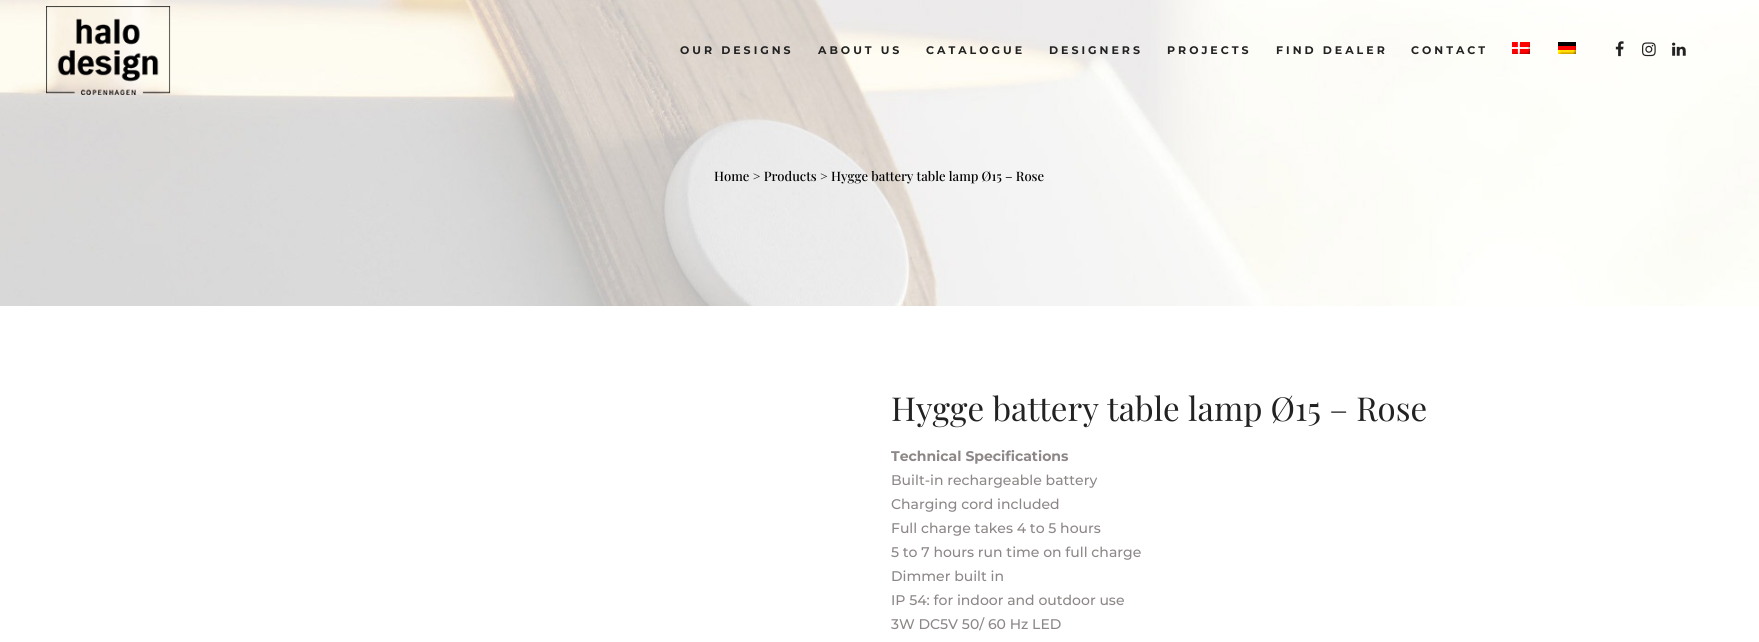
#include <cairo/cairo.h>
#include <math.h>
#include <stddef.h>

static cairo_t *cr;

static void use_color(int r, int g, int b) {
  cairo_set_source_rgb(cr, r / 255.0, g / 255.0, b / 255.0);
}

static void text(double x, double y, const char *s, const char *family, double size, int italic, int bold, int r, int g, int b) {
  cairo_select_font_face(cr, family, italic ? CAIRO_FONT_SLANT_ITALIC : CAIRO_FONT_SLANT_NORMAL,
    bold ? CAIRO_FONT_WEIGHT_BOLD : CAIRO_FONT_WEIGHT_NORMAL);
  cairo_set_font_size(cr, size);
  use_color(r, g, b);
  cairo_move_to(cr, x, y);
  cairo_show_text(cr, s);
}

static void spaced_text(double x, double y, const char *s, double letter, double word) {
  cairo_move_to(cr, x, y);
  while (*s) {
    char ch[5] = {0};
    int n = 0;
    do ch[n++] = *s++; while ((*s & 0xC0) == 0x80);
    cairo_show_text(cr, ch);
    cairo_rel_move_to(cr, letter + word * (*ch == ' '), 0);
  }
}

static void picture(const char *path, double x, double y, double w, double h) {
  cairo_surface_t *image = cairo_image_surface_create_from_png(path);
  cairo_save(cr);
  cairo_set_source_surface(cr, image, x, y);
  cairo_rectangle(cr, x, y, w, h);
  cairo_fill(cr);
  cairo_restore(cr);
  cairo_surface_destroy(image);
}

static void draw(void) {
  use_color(255, 255, 255);
  cairo_paint(cr);
  picture("img_07.png", 0, 0, 1759, 306);
  picture("img_01.png", 46, 6, 125, 89);
  picture("img_02.png", 1512, 42, 18, 12);
  picture("img_03.png", 1558, 42, 18, 12);
  picture("img_04.png", 1615, 41, 9, 16);
  picture("img_05.png", 1642, 42, 14, 15);
  picture("img_06.png", 1672, 42, 14, 14);
  cairo_select_font_face(cr, "Montserrat", CAIRO_FONT_SLANT_NORMAL, CAIRO_FONT_WEIGHT_BOLD);
  cairo_set_font_size(cr, 11);
  use_color(34, 34, 34);
  spaced_text(680, 54, "OUR DESIGNS", 3, 0);
  spaced_text(818, 54, "ABOUT US", 3, 0);
  spaced_text(926, 54, "CATALOGUE", 3, 0);
  spaced_text(1049, 54, "DESIGNERS", 3, 0);
  spaced_text(1167, 54, "PROJECTS", 3, 0);
  spaced_text(1276, 54, "FIND DEALER", 3, 0);
  spaced_text(1411, 54, "CONTACT", 3, 0);
  text(714, 181, "Home > Products > Hygge battery table lamp Ø15 – Rose", "Playfair Display Medium", 13, 0, 0, 0, 0, 0);
  text(891, 421, "Hygge battery table lamp Ø15 – Rose", "Playfair Display", 33, 0, 0, 34, 34, 34);
  text(891, 461, "Technical Specifications", "Montserrat", 14, 0, 1, 141, 135, 135);
  text(891, 485, "Built-in rechargeable battery", "Montserrat Medium", 14, 0, 0, 141, 135, 135);
  text(891, 509, "Charging cord included", "Montserrat Medium", 14, 0, 0, 141, 135, 135);
  text(891, 533, "Full charge takes 4 to 5 hours", "Montserrat Medium", 14, 0, 0, 141, 135, 135);
  text(891, 557, "5 to 7 hours run time on full charge", "Montserrat Medium", 14, 0, 0, 141, 135, 135);
  text(891, 581, "Dimmer built in", "Montserrat Medium", 14, 0, 0, 141, 135, 135);
  text(891, 605, "IP 54: for indoor and outdoor use", "Montserrat Medium", 14, 0, 0, 141, 135, 135);
  text(891, 629, "3W DC5V 50/ 60 Hz LED", "Montserrat Medium", 14, 0, 0, 141, 135, 135);
}

int main(void) {
  cairo_surface_t *surface = cairo_image_surface_create(CAIRO_FORMAT_RGB24, 1759, 642);
  cr = cairo_create(surface);
  cairo_font_options_t *options = cairo_font_options_create();
  cairo_font_options_set_hint_metrics(options, CAIRO_HINT_METRICS_OFF);
  cairo_font_options_set_hint_style(options, CAIRO_HINT_STYLE_NONE);
  cairo_set_font_options(cr, options);
  cairo_set_miter_limit(cr, 4);
  draw();
  cairo_surface_write_to_png(surface, "out.png");
  cairo_font_options_destroy(options);
  cairo_destroy(cr);
  cairo_surface_destroy(surface);
  return 0;
}
